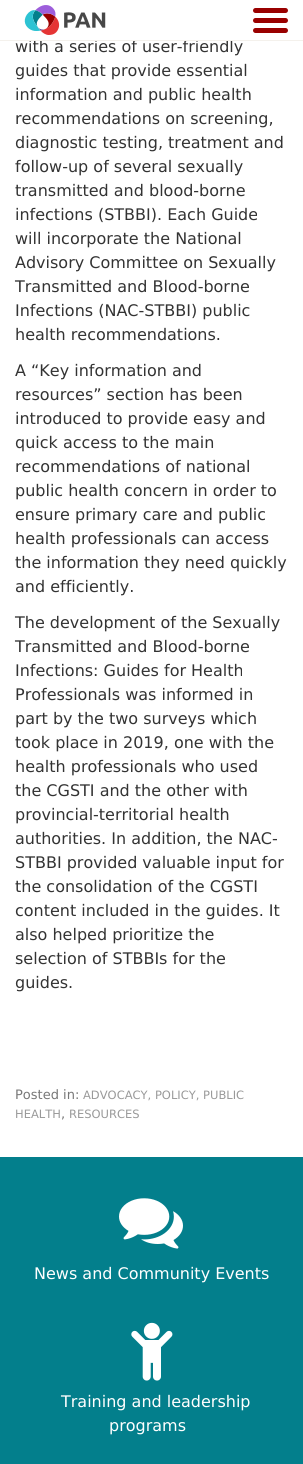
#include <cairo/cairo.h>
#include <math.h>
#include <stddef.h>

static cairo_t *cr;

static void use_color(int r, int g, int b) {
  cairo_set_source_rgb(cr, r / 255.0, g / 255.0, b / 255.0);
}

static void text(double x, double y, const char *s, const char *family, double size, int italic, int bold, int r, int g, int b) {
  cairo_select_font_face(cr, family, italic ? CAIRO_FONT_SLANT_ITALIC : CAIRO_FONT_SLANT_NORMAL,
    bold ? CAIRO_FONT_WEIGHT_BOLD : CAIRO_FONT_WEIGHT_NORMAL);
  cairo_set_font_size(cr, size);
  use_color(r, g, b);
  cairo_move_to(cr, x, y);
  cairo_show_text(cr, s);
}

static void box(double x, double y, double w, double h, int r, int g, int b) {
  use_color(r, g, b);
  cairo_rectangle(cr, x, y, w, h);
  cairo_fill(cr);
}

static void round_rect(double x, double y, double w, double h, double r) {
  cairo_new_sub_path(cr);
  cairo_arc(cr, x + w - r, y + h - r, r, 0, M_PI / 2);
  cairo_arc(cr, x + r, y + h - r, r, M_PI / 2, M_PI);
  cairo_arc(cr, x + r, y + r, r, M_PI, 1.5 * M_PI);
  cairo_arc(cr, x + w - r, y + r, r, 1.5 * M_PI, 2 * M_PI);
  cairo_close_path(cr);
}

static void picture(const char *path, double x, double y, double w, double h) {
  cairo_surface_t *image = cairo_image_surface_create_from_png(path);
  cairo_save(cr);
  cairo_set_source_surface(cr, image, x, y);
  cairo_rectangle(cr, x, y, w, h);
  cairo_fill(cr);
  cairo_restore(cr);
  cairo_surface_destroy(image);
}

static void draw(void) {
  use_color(3, 127, 140);
  cairo_paint(cr);
  box(0, 41, 303, 1116, 255, 255, 255);
  picture("img_02.png", 119, 1198, 64, 51);
  picture("img_03.png", 131, 1322, 42, 59);
  text(15, 52, "with a series of user-friendly", "DejaVu Sans", 16, 0, 0, 51, 51, 51);
  box(0, 0, 303, 40, 255, 255, 255);
  use_color(153, 0, 0);
  round_rect(253, 28, 35, 5, 2.5);
  cairo_fill(cr);
  round_rect(253, 8, 35, 5, 2.5);
  cairo_fill(cr);
  round_rect(253, 18, 35, 5, 2.5);
  cairo_fill(cr);
  picture("img_01.png", 24, 5, 82, 30);
  box(0, 40, 303, 1, 244, 241, 236);
  text(15, 76, "guides that provide essential", "DejaVu Sans", 16, 0, 0, 51, 51, 51);
  text(15, 100, "information and public health", "DejaVu Sans", 16, 0, 0, 51, 51, 51);
  text(15, 124, "recommendations on screening,", "DejaVu Sans", 16, 0, 0, 51, 51, 51);
  text(15, 148, "diagnostic testing, treatment and", "DejaVu Sans", 16, 0, 0, 51, 51, 51);
  text(15, 172, "follow-up of several sexually", "DejaVu Sans", 16, 0, 0, 51, 51, 51);
  text(15, 196, "transmitted and blood-borne", "DejaVu Sans", 16, 0, 0, 51, 51, 51);
  text(15, 220, "infections (STBBI). Each Guide", "DejaVu Sans", 16, 0, 0, 51, 51, 51);
  text(15, 244, "will incorporate the National", "DejaVu Sans", 16, 0, 0, 51, 51, 51);
  text(15, 268, "Advisory Committee on Sexually", "DejaVu Sans", 16, 0, 0, 51, 51, 51);
  text(15, 292, "Transmitted and Blood-borne", "DejaVu Sans", 16, 0, 0, 51, 51, 51);
  text(15, 316, "Infections (NAC-STBBI) public", "DejaVu Sans", 16, 0, 0, 51, 51, 51);
  text(15, 340, "health recommendations.", "DejaVu Sans", 16, 0, 0, 51, 51, 51);
  text(15, 376, "A “Key information and", "DejaVu Sans", 16, 0, 0, 51, 51, 51);
  text(15, 400, "resources” section has been", "DejaVu Sans", 16, 0, 0, 51, 51, 51);
  text(15, 424, "introduced to provide easy and", "DejaVu Sans", 16, 0, 0, 51, 51, 51);
  text(15, 448, "quick access to the main", "DejaVu Sans", 16, 0, 0, 51, 51, 51);
  text(15, 472, "recommendations of national", "DejaVu Sans", 16, 0, 0, 51, 51, 51);
  text(15, 496, "public health concern in order to", "DejaVu Sans", 16, 0, 0, 51, 51, 51);
  text(15, 520, "ensure primary care and public", "DejaVu Sans", 16, 0, 0, 51, 51, 51);
  text(15, 544, "health professionals can access", "DejaVu Sans", 16, 0, 0, 51, 51, 51);
  text(15, 568, "the information they need quickly", "DejaVu Sans", 16, 0, 0, 51, 51, 51);
  text(15, 592, "and efficiently.", "DejaVu Sans", 16, 0, 0, 51, 51, 51);
  text(15, 628, "The development of the Sexually", "DejaVu Sans", 16, 0, 0, 51, 51, 51);
  text(15, 652, "Transmitted and Blood-borne", "DejaVu Sans", 16, 0, 0, 51, 51, 51);
  text(15, 676, "Infections: Guides for Health", "DejaVu Sans", 16, 0, 0, 51, 51, 51);
  text(15, 700, "Professionals was informed in", "DejaVu Sans", 16, 0, 0, 51, 51, 51);
  text(15, 724, "part by the two surveys which", "DejaVu Sans", 16, 0, 0, 51, 51, 51);
  text(15, 748, "took place in 2019, one with the", "DejaVu Sans", 16, 0, 0, 51, 51, 51);
  text(15, 772, "health professionals who used", "DejaVu Sans", 16, 0, 0, 51, 51, 51);
  text(15, 796, "the CGSTI and the other with", "DejaVu Sans", 16, 0, 0, 51, 51, 51);
  text(15, 820, "provincial-territorial health", "DejaVu Sans", 16, 0, 0, 51, 51, 51);
  text(15, 844, "authorities. In addition, the NAC-", "DejaVu Sans", 16, 0, 0, 51, 51, 51);
  text(15, 868, "STBBI provided valuable input for", "DejaVu Sans", 16, 0, 0, 51, 51, 51);
  text(15, 892, "the consolidation of the CGSTI", "DejaVu Sans", 16, 0, 0, 51, 51, 51);
  text(15, 916, "content included in the guides. It", "DejaVu Sans", 16, 0, 0, 51, 51, 51);
  text(15, 940, "also helped prioritize the", "DejaVu Sans", 16, 0, 0, 51, 51, 51);
  text(15, 964, "selection of STBBIs for the", "DejaVu Sans", 16, 0, 0, 51, 51, 51);
  text(15, 988, "guides.", "DejaVu Sans", 16, 0, 0, 51, 51, 51);
  text(15, 1099, "Posted in:", "DejaVu Sans", 13, 0, 0, 119, 119, 119);
  text(83, 1099, "ADVOCACY, POLICY, PUBLIC", "DejaVu Sans", 11.5, 0, 0, 153, 153, 153);
  text(15, 1118, "HEALTH", "DejaVu Sans", 11.5, 0, 0, 153, 153, 153);
  text(61, 1118, ",", "DejaVu Sans", 13, 0, 0, 119, 119, 119);
  text(69, 1118, "RESOURCES", "DejaVu Sans", 11.5, 0, 0, 153, 153, 153);
  text(34, 1279, "News and Community Events", "DejaVu Sans", 16, 0, 0, 255, 255, 255);
  text(61, 1407, "Training and leadership", "DejaVu Sans", 16, 0, 0, 255, 255, 255);
  text(109, 1431, "programs", "DejaVu Sans", 16, 0, 0, 255, 255, 255);
}

int main(void) {
  cairo_surface_t *surface = cairo_image_surface_create(CAIRO_FORMAT_RGB24, 303, 1464);
  cr = cairo_create(surface);
  cairo_font_options_t *options = cairo_font_options_create();
  cairo_font_options_set_hint_metrics(options, CAIRO_HINT_METRICS_OFF);
  cairo_font_options_set_hint_style(options, CAIRO_HINT_STYLE_NONE);
  cairo_set_font_options(cr, options);
  cairo_set_miter_limit(cr, 4);
  draw();
  cairo_surface_write_to_png(surface, "out.png");
  cairo_font_options_destroy(options);
  cairo_destroy(cr);
  cairo_surface_destroy(surface);
  return 0;
}
